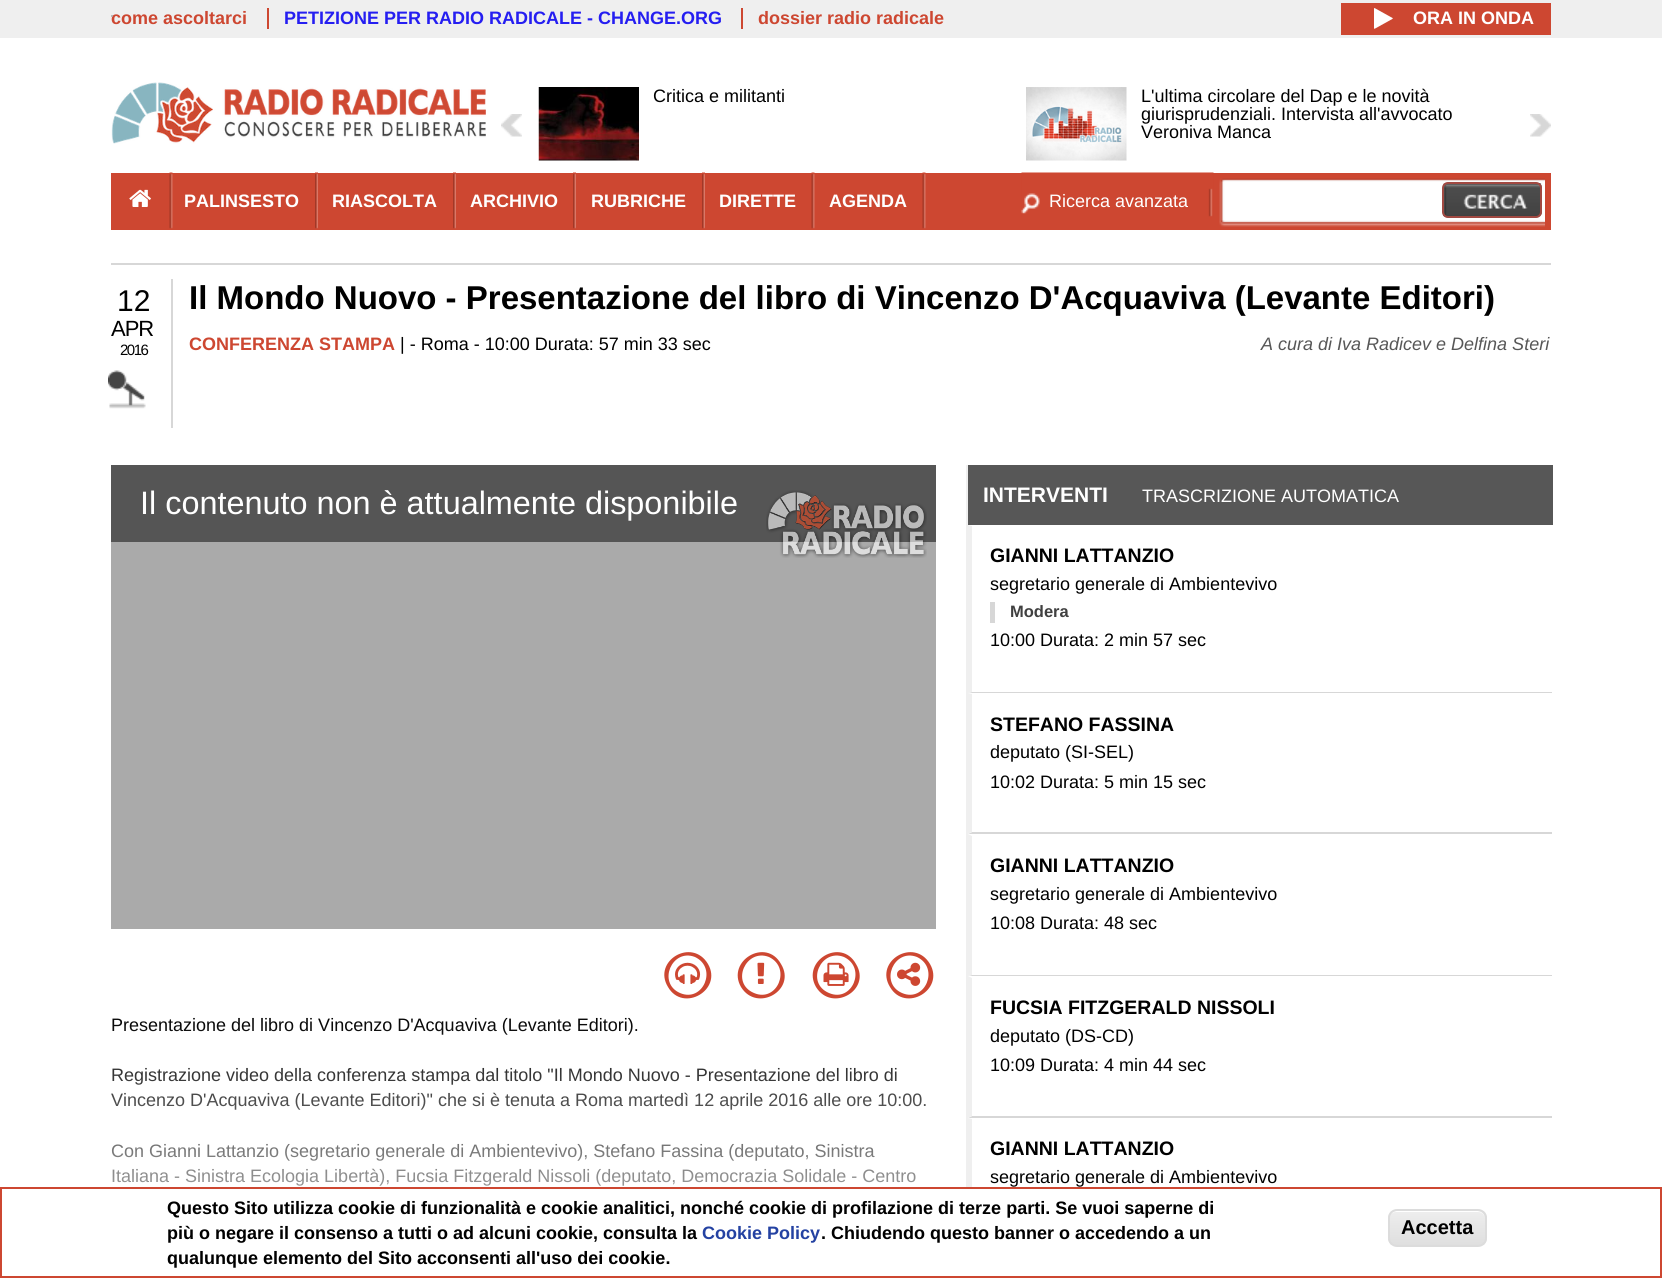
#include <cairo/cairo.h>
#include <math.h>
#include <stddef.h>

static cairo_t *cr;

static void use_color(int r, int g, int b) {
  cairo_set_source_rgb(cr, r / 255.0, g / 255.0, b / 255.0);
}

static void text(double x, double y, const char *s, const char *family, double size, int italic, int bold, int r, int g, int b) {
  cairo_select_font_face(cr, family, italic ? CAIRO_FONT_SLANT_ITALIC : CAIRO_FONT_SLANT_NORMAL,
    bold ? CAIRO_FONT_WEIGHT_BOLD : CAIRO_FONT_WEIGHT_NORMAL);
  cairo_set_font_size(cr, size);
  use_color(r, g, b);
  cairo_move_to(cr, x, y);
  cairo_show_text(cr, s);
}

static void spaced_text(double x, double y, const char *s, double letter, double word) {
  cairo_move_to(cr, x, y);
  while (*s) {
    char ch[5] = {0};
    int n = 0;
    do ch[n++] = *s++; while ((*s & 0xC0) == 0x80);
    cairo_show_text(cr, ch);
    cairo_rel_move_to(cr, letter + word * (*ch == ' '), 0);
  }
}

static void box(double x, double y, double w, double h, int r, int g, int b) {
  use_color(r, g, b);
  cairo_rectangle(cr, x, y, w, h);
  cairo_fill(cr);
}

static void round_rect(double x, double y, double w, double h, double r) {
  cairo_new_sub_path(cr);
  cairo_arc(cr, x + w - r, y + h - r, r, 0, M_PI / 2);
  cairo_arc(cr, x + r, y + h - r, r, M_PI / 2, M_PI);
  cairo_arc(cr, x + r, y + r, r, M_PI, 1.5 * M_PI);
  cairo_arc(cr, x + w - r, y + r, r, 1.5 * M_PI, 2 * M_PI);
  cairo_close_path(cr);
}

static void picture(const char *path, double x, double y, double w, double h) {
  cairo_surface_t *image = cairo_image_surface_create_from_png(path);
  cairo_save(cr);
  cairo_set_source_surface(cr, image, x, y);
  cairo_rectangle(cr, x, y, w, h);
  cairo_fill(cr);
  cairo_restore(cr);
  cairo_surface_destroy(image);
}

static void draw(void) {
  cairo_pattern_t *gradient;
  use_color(255, 255, 255);
  cairo_paint(cr);
  box(0, 0, 1662, 38, 239, 239, 239);
  box(267, 8, 2, 21, 205, 71, 49);
  box(741, 8, 2, 21, 205, 71, 49);
  box(1341, 3, 210, 32, 205, 71, 49);
  picture("img_01.png", 1374, 8, 19, 21);
  box(111, 263, 1440, 2, 215, 215, 215);
  picture("img_02.png", 111, 82, 375, 62);
  picture("img_03.png", 538, 87, 101, 74);
  picture("img_04.png", 1026, 87, 101, 74);
  picture("img_05.png", 501, 114, 21, 23);
  picture("img_06.png", 1530, 114, 21, 23);
  box(111, 173, 1440, 57, 205, 71, 49);
  picture("img_07.png", 129, 189, 22, 18);
  picture("img_08.png", 169, 172, 4, 57);
  picture("img_09.png", 315, 172, 3, 57);
  picture("img_09.png", 453, 172, 3, 57);
  picture("img_09.png", 573, 172, 3, 57);
  picture("img_09.png", 702, 172, 3, 57);
  picture("img_08.png", 811, 172, 4, 57);
  picture("img_08.png", 922, 172, 4, 57);
  picture("img_10.png", 1021, 172, 193, 45);
  picture("img_11.png", 1219, 178, 326, 49);
  picture("img_12.png", 1443, 183, 99, 35);
  round_rect(1443, 183, 98, 34, 5);
  use_color(161, 73, 66);
  cairo_stroke(cr);
  picture("img_13.png", 108, 370, 38, 39);
  box(171, 279, 2, 149, 215, 215, 215);
  box(111, 542, 825, 387, 170, 170, 170);
  box(111, 465, 825, 77, 85, 85, 85);
  picture("img_14.png", 766, 490, 161, 68);
  use_color(205, 71, 49);
  cairo_new_path(cr);
  cairo_move_to(cr, 695, 957);
  cairo_curve_to(cr, 672, 948, 657, 983, 680, 993);
  cairo_curve_to(cr, 703, 1003, 718, 968, 695, 957);
  cairo_close_path(cr);
  cairo_move_to(cr, 708, 964);
  cairo_curve_to(cr, 723, 990, 683, 1013, 668, 987);
  cairo_curve_to(cr, 652, 961, 692, 937, 708, 964);
  cairo_close_path(cr);
  cairo_fill(cr);
  picture("img_15.png", 675, 962, 26, 22);
  cairo_new_path(cr);
  cairo_move_to(cr, 769, 957);
  cairo_curve_to(cr, 746, 948, 730, 983, 754, 993);
  cairo_curve_to(cr, 777, 1003, 792, 968, 769, 957);
  cairo_close_path(cr);
  cairo_move_to(cr, 781, 964);
  cairo_curve_to(cr, 797, 990, 757, 1013, 741, 987);
  cairo_curve_to(cr, 726, 961, 766, 937, 781, 964);
  cairo_close_path(cr);
  cairo_fill(cr);
  picture("img_16.png", 757, 962, 8, 22);
  cairo_new_path(cr);
  cairo_move_to(cr, 844, 957);
  cairo_curve_to(cr, 821, 948, 805, 983, 829, 993);
  cairo_curve_to(cr, 852, 1003, 867, 968, 844, 957);
  cairo_close_path(cr);
  cairo_move_to(cr, 856, 964);
  cairo_curve_to(cr, 872, 990, 832, 1013, 816, 987);
  cairo_curve_to(cr, 801, 961, 841, 937, 856, 964);
  cairo_close_path(cr);
  cairo_fill(cr);
  picture("img_17.png", 823, 962, 26, 24);
  cairo_new_path(cr);
  cairo_move_to(cr, 917, 957);
  cairo_curve_to(cr, 894, 948, 879, 983, 902, 993);
  cairo_curve_to(cr, 925, 1003, 940, 968, 917, 957);
  cairo_close_path(cr);
  cairo_move_to(cr, 930, 964);
  cairo_curve_to(cr, 945, 990, 905, 1013, 890, 987);
  cairo_curve_to(cr, 874, 961, 914, 937, 930, 964);
  cairo_close_path(cr);
  cairo_fill(cr);
  picture("img_18.png", 897, 962, 24, 24);
  box(966, 465, 2, 722, 239, 239, 239);
  box(968, 465, 585, 60, 87, 87, 87);
  use_color(215, 215, 215);
  cairo_new_path(cr);
  cairo_move_to(cr, 1552, 693);
  cairo_line_to(cr, 968, 693);
  cairo_line_to(cr, 972, 692);
  cairo_line_to(cr, 1552, 692);
  cairo_close_path(cr);
  cairo_fill(cr);
  use_color(239, 239, 239);
  cairo_new_path(cr);
  cairo_move_to(cr, 968, 693);
  cairo_line_to(cr, 968, 525);
  cairo_line_to(cr, 972, 526);
  cairo_line_to(cr, 972, 692);
  cairo_close_path(cr);
  cairo_fill(cr);
  box(990, 602, 5, 21, 215, 215, 215);
  cairo_new_path(cr);
  cairo_move_to(cr, 1552, 834);
  cairo_line_to(cr, 968, 834);
  cairo_line_to(cr, 972, 832);
  cairo_line_to(cr, 1552, 832);
  cairo_close_path(cr);
  cairo_fill(cr);
  use_color(239, 239, 239);
  cairo_new_path(cr);
  cairo_move_to(cr, 968, 834);
  cairo_line_to(cr, 968, 693);
  cairo_line_to(cr, 972, 694);
  cairo_line_to(cr, 972, 832);
  cairo_close_path(cr);
  cairo_fill(cr);
  use_color(215, 215, 215);
  cairo_new_path(cr);
  cairo_move_to(cr, 1552, 976);
  cairo_line_to(cr, 968, 976);
  cairo_line_to(cr, 972, 975);
  cairo_line_to(cr, 1552, 975);
  cairo_close_path(cr);
  cairo_fill(cr);
  use_color(239, 239, 239);
  cairo_new_path(cr);
  cairo_move_to(cr, 968, 976);
  cairo_line_to(cr, 968, 834);
  cairo_line_to(cr, 972, 836);
  cairo_line_to(cr, 972, 975);
  cairo_close_path(cr);
  cairo_fill(cr);
  use_color(215, 215, 215);
  cairo_new_path(cr);
  cairo_move_to(cr, 1552, 1118);
  cairo_line_to(cr, 968, 1118);
  cairo_line_to(cr, 972, 1116);
  cairo_line_to(cr, 1552, 1116);
  cairo_close_path(cr);
  cairo_fill(cr);
  use_color(239, 239, 239);
  cairo_new_path(cr);
  cairo_move_to(cr, 968, 1118);
  cairo_line_to(cr, 968, 976);
  cairo_line_to(cr, 972, 978);
  cairo_line_to(cr, 972, 1116);
  cairo_close_path(cr);
  cairo_fill(cr);
  cairo_new_path(cr);
  cairo_move_to(cr, 968, 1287);
  cairo_line_to(cr, 968, 1118);
  cairo_line_to(cr, 972, 1119);
  cairo_line_to(cr, 972, 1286);
  cairo_close_path(cr);
  cairo_fill(cr);
  box(968, 1189, 4, 87, 255, 255, 255);
  cairo_rectangle(cr, 1, 1188, 1660, 89);
  use_color(205, 71, 49);
  cairo_stroke(cr);
  cairo_save(cr);
  round_rect(1388, 1209, 99, 38, 9);
  cairo_clip(cr);
  gradient = cairo_pattern_create_linear(1437, 1211, 1437, 1245);
  cairo_pattern_add_color_stop_rgba(gradient, 0.05, 0.929, 0.929, 0.929, 1);
  cairo_pattern_add_color_stop_rgba(gradient, 1, 0.875, 0.875, 0.875, 1);
  cairo_set_source(cr, gradient);
  cairo_pattern_destroy(gradient);
  cairo_rectangle(cr, 1388, 1211, 99, 34);
  cairo_fill(cr);
  cairo_restore(cr);
  use_color(255, 255, 255);
  cairo_new_path(cr);
  cairo_move_to(cr, 1396, 1212);
  cairo_line_to(cr, 1478, 1212);
  cairo_curve_to(cr, 1482, 1212, 1485, 1215, 1485, 1220);
  cairo_curve_to(cr, 1485, 1208, 1472, 1211, 1464, 1211);
  cairo_line_to(cr, 1410, 1211);
  cairo_curve_to(cr, 1402, 1211, 1389, 1208, 1389, 1220);
  cairo_curve_to(cr, 1389, 1215, 1392, 1212, 1396, 1212);
  cairo_close_path(cr);
  cairo_fill(cr);
  round_rect(1389, 1210, 97, 36, 8);
  use_color(220, 220, 220);
  cairo_stroke(cr);
  text(111, 24, "come ascoltarci", "Liberation Sans", 18, 0, 1, 205, 71, 49);
  text(284, 24, "PETIZIONE PER RADIO RADICALE - CHANGE.ORG", "Liberation Sans", 18, 0, 1, 37, 30, 241);
  text(758, 24, "dossier radio radicale", "Liberation Sans", 18, 0, 1, 205, 71, 49);
  use_color(170, 170, 170);
  cairo_new_path(cr);
  cairo_arc(cr, 112, 16, 1, 0, 2 * M_PI);
  cairo_fill(cr);
  text(1413, 24, "ORA IN ONDA", "Liberation Sans", 18, 0, 1, 255, 255, 255);
  text(653, 102, "Critica e militanti", "Liberation Sans", 18, 0, 0, 0, 0, 0);
  text(1141, 102, "L'ultima circolare del Dap e le novità", "Liberation Sans", 18, 0, 0, 0, 0, 0);
  text(1141, 120, "giurisprudenziali. Intervista all'avvocato", "Liberation Sans", 18, 0, 0, 0, 0, 0);
  text(1141, 138, "Veroniva Manca", "Liberation Sans", 18, 0, 0, 0, 0, 0);
  text(184, 207, "PALINSESTO", "Liberation Sans", 18, 0, 1, 255, 255, 255);
  text(332, 207, "RIASCOLTA", "Liberation Sans", 18, 0, 1, 255, 255, 255);
  text(470, 207, "ARCHIVIO", "Liberation Sans", 18, 0, 1, 255, 255, 255);
  text(591, 207, "RUBRICHE", "Liberation Sans", 18, 0, 1, 255, 255, 255);
  text(719, 207, "DIRETTE", "Liberation Sans", 18, 0, 1, 255, 255, 255);
  text(829, 207, "AGENDA", "Liberation Sans", 18, 0, 1, 255, 255, 255);
  text(1049, 207, "Ricerca avanzata", "Liberation Sans", 18, 0, 0, 255, 255, 255);
  text(117, 311, "12", "Liberation Sans", 30, 0, 0, 0, 0, 0);
  cairo_set_font_size(cr, 22);
  spaced_text(111, 336, "APR", -1, 0);
  cairo_set_font_size(cr, 15);
  spaced_text(120, 355, "2016", -1.5, 0);
  text(189, 309, "Il Mondo Nuovo - Presentazione del libro di Vincenzo D'Acquaviva (Levante Editori)", "Liberation Sans", 33, 0, 1, 0, 0, 0);
  text(189, 350, "CONFERENZA STAMPA", "Liberation Sans", 18, 0, 1, 205, 71, 49);
  text(400, 350, "| - Roma - 10:00 Durata: 57 min 33 sec", "Liberation Sans", 18, 0, 0, 0, 0, 0);
  text(1261, 350, "A cura di Iva Radicev e Delfina Steri", "Liberation Sans", 18, 1, 0, 87, 87, 87);
  text(140, 514, "Il contenuto non è attualmente disponibile", "Liberation Sans", 32.4, 0, 0, 255, 255, 255);
  text(111, 1031, "Presentazione del libro di Vincenzo D'Acquaviva (Levante Editori).", "Liberation Sans", 18, 0, 0, 0, 0, 0);
  text(111, 1081, "Registrazione video della conferenza stampa dal titolo \"Il Mondo Nuovo - Presentazione del libro di", "Liberation Sans", 18, 0, 0, 0, 0, 0);
  text(111, 1106, "Vincenzo D'Acquaviva (Levante Editori)\" che si è tenuta a Roma martedì 12 aprile 2016 alle ore 10:00.", "Liberation Sans", 18, 0, 0, 0, 0, 0);
  text(111, 1157, "Con Gianni Lattanzio (segretario generale di Ambientevivo), Stefano Fassina (deputato, Sinistra", "Liberation Sans", 18, 0, 0, 0, 0, 0);
  text(111, 1182, "Italiana - Sinistra Ecologia Libertà), Fucsia Fitzgerald Nissoli (deputato, Democrazia Solidale - Centro", "Liberation Sans", 18, 0, 0, 0, 0, 0);
  gradient = cairo_pattern_create_linear(524, 1013, 524, 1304);
  cairo_pattern_add_color_stop_rgba(gradient, 0, 1, 1, 1, 0);
  cairo_pattern_add_color_stop_rgba(gradient, 1, 1, 1, 1, 1);
  cairo_set_source(cr, gradient);
  cairo_pattern_destroy(gradient);
  cairo_rectangle(cr, 111, 1019, 815, 167);
  cairo_fill(cr);
  text(983, 502, "INTERVENTI", "Liberation Sans", 21, 0, 1, 255, 255, 255);
  text(1142, 502, "TRASCRIZIONE AUTOMATICA", "Liberation Sans", 18, 0, 0, 255, 255, 255);
  text(990, 562, "GIANNI LATTANZIO", "Liberation Sans", 19.5, 0, 1, 0, 0, 0);
  text(990, 590, "segretario generale di Ambientevivo", "Liberation Sans", 18, 0, 0, 0, 0, 0);
  text(1010, 617, "Modera", "Liberation Sans", 16.5, 0, 1, 64, 64, 64);
  text(990, 646, "10:00 Durata: 2 min 57 sec", "Liberation Sans", 18, 0, 0, 0, 0, 0);
  text(990, 731, "STEFANO FASSINA", "Liberation Sans", 19.5, 0, 1, 0, 0, 0);
  text(990, 758, "deputato (SI-SEL)", "Liberation Sans", 18, 0, 0, 0, 0, 0);
  text(990, 788, "10:02 Durata: 5 min 15 sec", "Liberation Sans", 18, 0, 0, 0, 0, 0);
  text(990, 872, "GIANNI LATTANZIO", "Liberation Sans", 19.5, 0, 1, 0, 0, 0);
  text(990, 900, "segretario generale di Ambientevivo", "Liberation Sans", 18, 0, 0, 0, 0, 0);
  text(990, 929, "10:08 Durata: 48 sec", "Liberation Sans", 18, 0, 0, 0, 0, 0);
  text(990, 1014, "FUCSIA FITZGERALD NISSOLI", "Liberation Sans", 19.5, 0, 1, 0, 0, 0);
  text(990, 1042, "deputato (DS-CD)", "Liberation Sans", 18, 0, 0, 0, 0, 0);
  text(990, 1071, "10:09 Durata: 4 min 44 sec", "Liberation Sans", 18, 0, 0, 0, 0, 0);
  text(990, 1155, "GIANNI LATTANZIO", "Liberation Sans", 19.5, 0, 1, 0, 0, 0);
  text(990, 1183, "segretario generale di Ambientevivo", "Liberation Sans", 18, 0, 0, 0, 0, 0);
  text(167, 1214, "Questo Sito utilizza cookie di funzionalità e cookie analitici, nonché cookie di profilazione di terze parti. Se vuoi saperne di", "Liberation Sans", 18, 0, 1, 0, 0, 0);
  text(167, 1239, "più o negare il consenso a tutti o ad alcuni cookie, consulta la", "Liberation Sans", 18, 0, 1, 0, 0, 0);
  text(702, 1239, "Cookie Policy", "Liberation Sans", 18, 0, 1, 36, 66, 162);
  text(821, 1239, ". Chiudendo questo banner o accedendo a un", "Liberation Sans", 18, 0, 1, 0, 0, 0);
  text(167, 1264, "qualunque elemento del Sito acconsenti all'uso dei cookie.", "Liberation Sans", 18, 0, 1, 0, 0, 0);
  text(1401, 1234, "Accetta", "Liberation Sans", 20, 0, 1, 0, 0, 0);
}

int main(void) {
  cairo_surface_t *surface = cairo_image_surface_create(CAIRO_FORMAT_RGB24, 1662, 1278);
  cr = cairo_create(surface);
  cairo_font_options_t *options = cairo_font_options_create();
  cairo_font_options_set_hint_metrics(options, CAIRO_HINT_METRICS_OFF);
  cairo_font_options_set_hint_style(options, CAIRO_HINT_STYLE_NONE);
  cairo_set_font_options(cr, options);
  cairo_set_miter_limit(cr, 4);
  draw();
  cairo_surface_write_to_png(surface, "out.png");
  cairo_font_options_destroy(options);
  cairo_destroy(cr);
  cairo_surface_destroy(surface);
  return 0;
}
